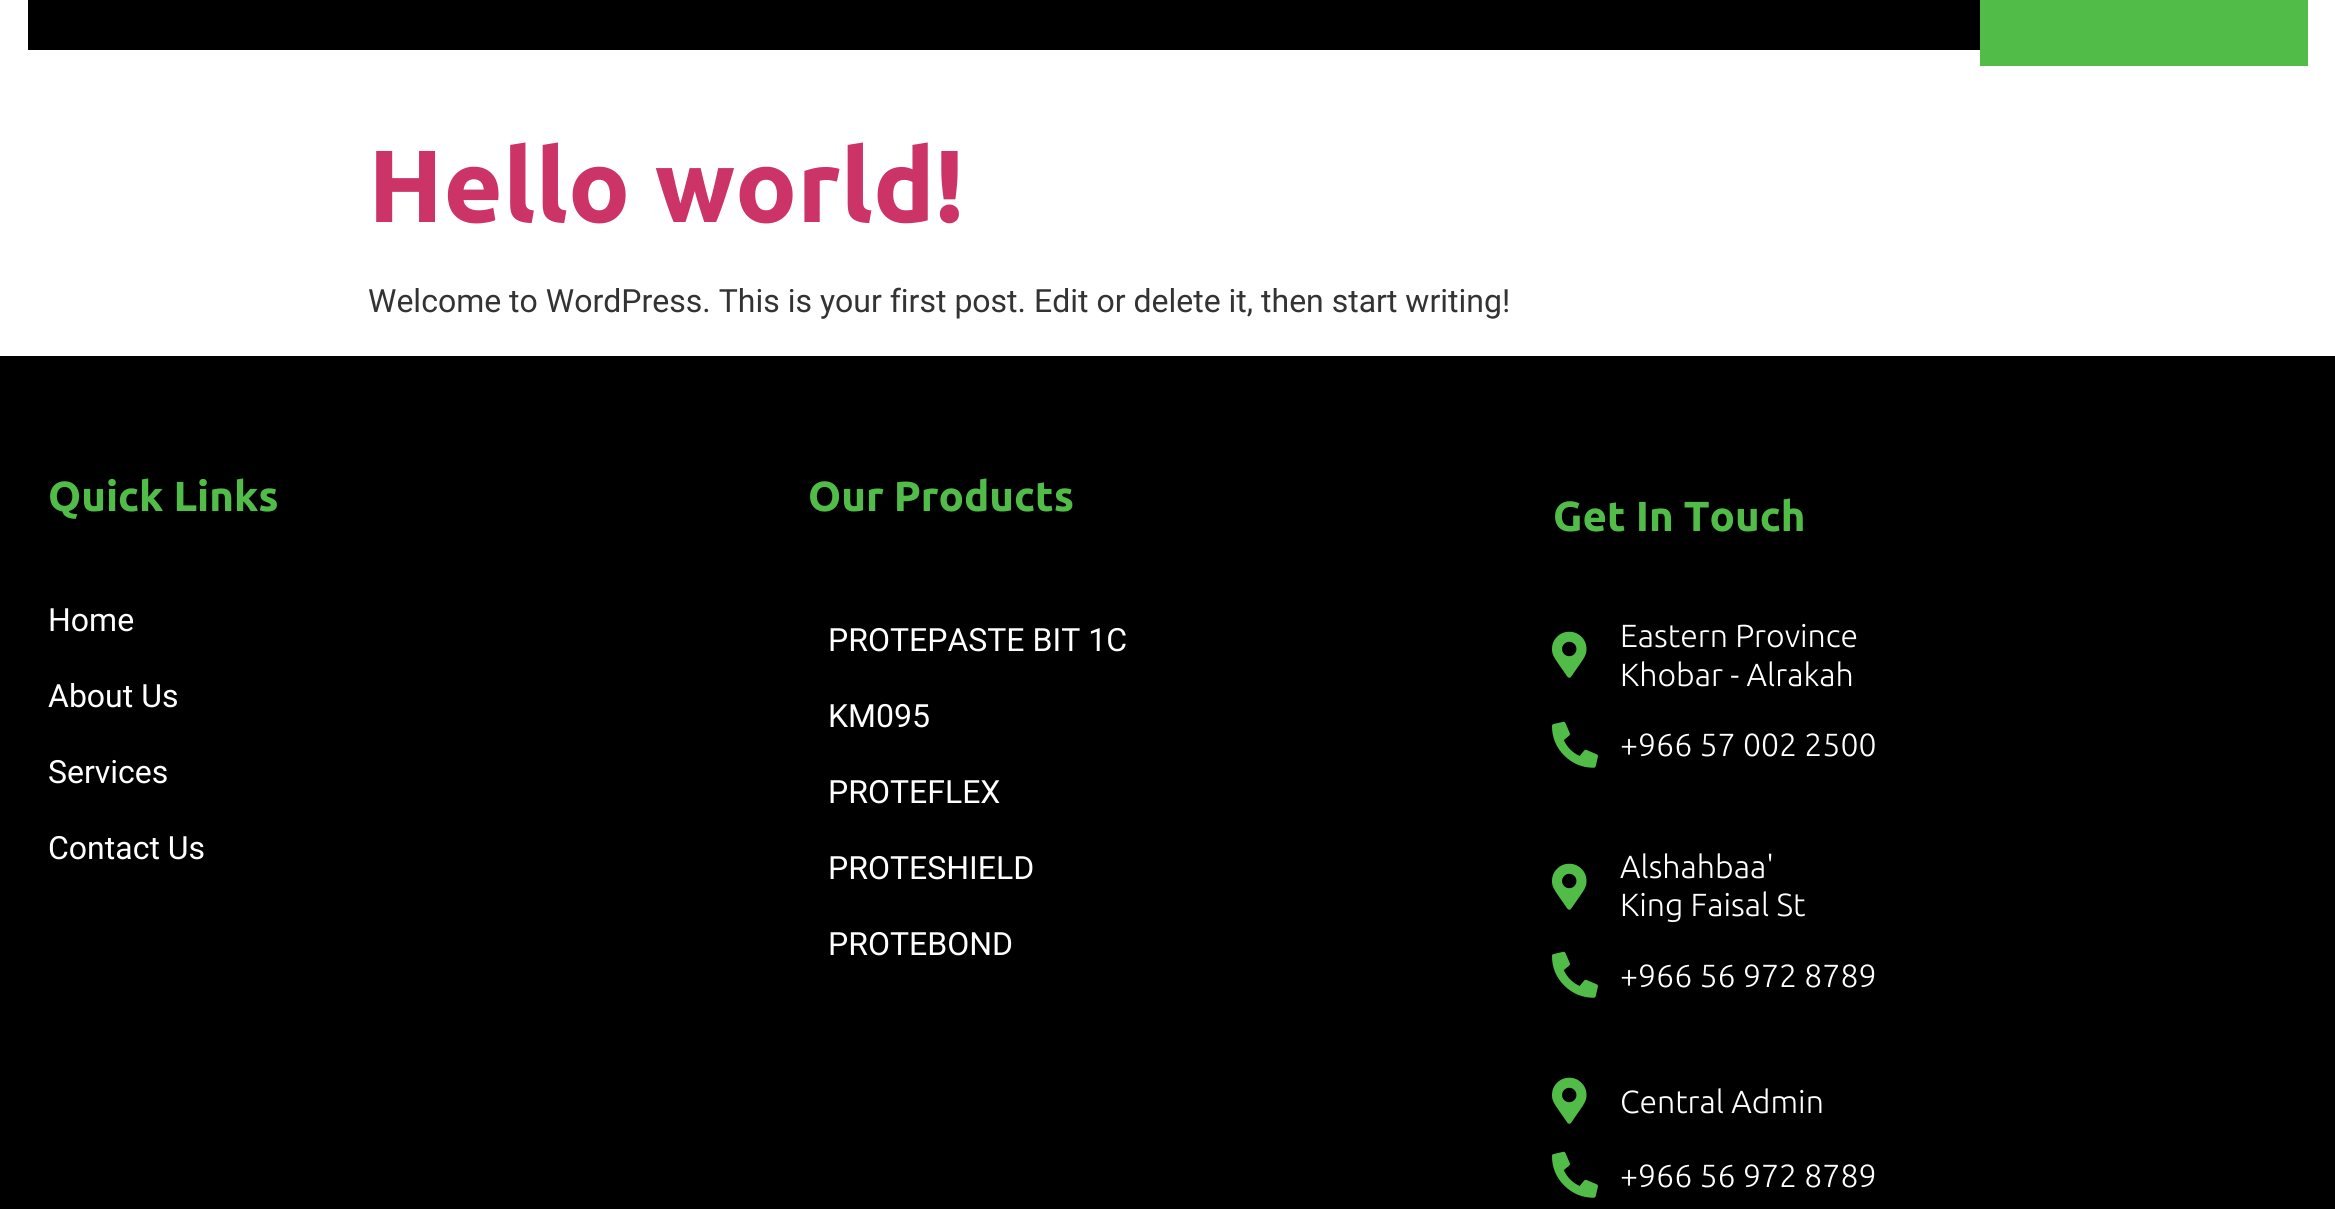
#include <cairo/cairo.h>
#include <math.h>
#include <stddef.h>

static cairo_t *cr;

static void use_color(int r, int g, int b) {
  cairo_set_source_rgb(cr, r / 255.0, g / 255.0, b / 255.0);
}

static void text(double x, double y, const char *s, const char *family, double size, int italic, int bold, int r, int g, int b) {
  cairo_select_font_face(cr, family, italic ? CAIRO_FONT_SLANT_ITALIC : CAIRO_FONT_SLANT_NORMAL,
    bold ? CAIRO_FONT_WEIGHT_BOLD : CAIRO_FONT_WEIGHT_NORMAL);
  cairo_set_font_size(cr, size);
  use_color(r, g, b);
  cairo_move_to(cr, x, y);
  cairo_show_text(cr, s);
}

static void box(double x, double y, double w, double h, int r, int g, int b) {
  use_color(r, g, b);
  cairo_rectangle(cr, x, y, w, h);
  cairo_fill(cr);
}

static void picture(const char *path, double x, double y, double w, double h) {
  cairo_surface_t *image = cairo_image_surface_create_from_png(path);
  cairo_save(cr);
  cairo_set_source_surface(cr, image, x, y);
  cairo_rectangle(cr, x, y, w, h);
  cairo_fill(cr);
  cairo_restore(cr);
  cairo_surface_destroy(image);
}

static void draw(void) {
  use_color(255, 255, 255);
  cairo_paint(cr);
  box(28, 0, 1952, 50, 0, 0, 0);
  box(1980, 0, 328, 66, 81, 189, 72);
  box(0, 356, 2335, 853, 0, 0, 0);
  picture("img_01.png", 1552, 631, 35, 47);
  picture("img_02.png", 1552, 721, 46, 47);
  picture("img_01.png", 1552, 863, 35, 47);
  picture("img_02.png", 1552, 951, 46, 47);
  picture("img_01.png", 1552, 1077, 35, 47);
  picture("img_02.png", 1552, 1151, 46, 47);
  text(368, 222, "Hello world!", "Ubuntu", 102.5, 0, 1, 204, 51, 102);
  text(368, 312, "Welcome to WordPress. This is your first post. Edit or delete it, then start writing!", "Roboto", 32, 0, 0, 51, 51, 51);
  text(48, 511, "Quick Links", "Ubuntu", 42, 0, 1, 81, 189, 72);
  text(48, 631, "Home", "Roboto", 32, 0, 0, 255, 255, 255);
  text(48, 707, "About Us", "Roboto", 32, 0, 0, 255, 255, 255);
  text(48, 783, "Services", "Roboto", 32, 0, 0, 255, 255, 255);
  text(48, 859, "Contact Us", "Roboto", 32, 0, 0, 255, 255, 255);
  text(808, 511, "Our Products", "Ubuntu", 42, 0, 1, 81, 189, 72);
  text(828, 651, "PROTEPASTE BIT 1C", "Roboto", 32, 0, 0, 255, 255, 255);
  text(828, 727, "KM095", "Roboto", 32, 0, 0, 255, 255, 255);
  text(828, 803, "PROTEFLEX", "Roboto", 32, 0, 0, 255, 255, 255);
  text(828, 879, "PROTESHIELD", "Roboto", 32, 0, 0, 255, 255, 255);
  text(828, 955, "PROTEBOND", "Roboto", 32, 0, 0, 255, 255, 255);
  text(1553, 531, "Get In Touch", "Ubuntu", 42, 0, 1, 81, 189, 72);
  text(1620, 647, "Eastern Province", "Ubuntu Light", 32, 0, 0, 255, 255, 255);
  text(1620, 686, "Khobar - Alrakah", "Ubuntu Light", 32, 0, 0, 255, 255, 255);
  text(1620, 756, "+966 57 002 2500", "Ubuntu Light", 32, 0, 0, 255, 255, 255);
  text(1620, 878, "Alshahbaa'", "Ubuntu Light", 32, 0, 0, 255, 255, 255);
  text(1620, 916, "King Faisal St", "Ubuntu Light", 32, 0, 0, 255, 255, 255);
  text(1620, 987, "+966 56 972 8789", "Ubuntu Light", 32, 0, 0, 255, 255, 255);
  text(1620, 1113, "Central Admin", "Ubuntu Light", 32, 0, 0, 255, 255, 255);
  text(1620, 1187, "+966 56 972 8789", "Ubuntu Light", 32, 0, 0, 255, 255, 255);
}

int main(void) {
  cairo_surface_t *surface = cairo_image_surface_create(CAIRO_FORMAT_RGB24, 2335, 1209);
  cr = cairo_create(surface);
  cairo_font_options_t *options = cairo_font_options_create();
  cairo_font_options_set_hint_metrics(options, CAIRO_HINT_METRICS_OFF);
  cairo_font_options_set_hint_style(options, CAIRO_HINT_STYLE_NONE);
  cairo_set_font_options(cr, options);
  cairo_set_miter_limit(cr, 4);
  draw();
  cairo_surface_write_to_png(surface, "out.png");
  cairo_font_options_destroy(options);
  cairo_destroy(cr);
  cairo_surface_destroy(surface);
  return 0;
}
